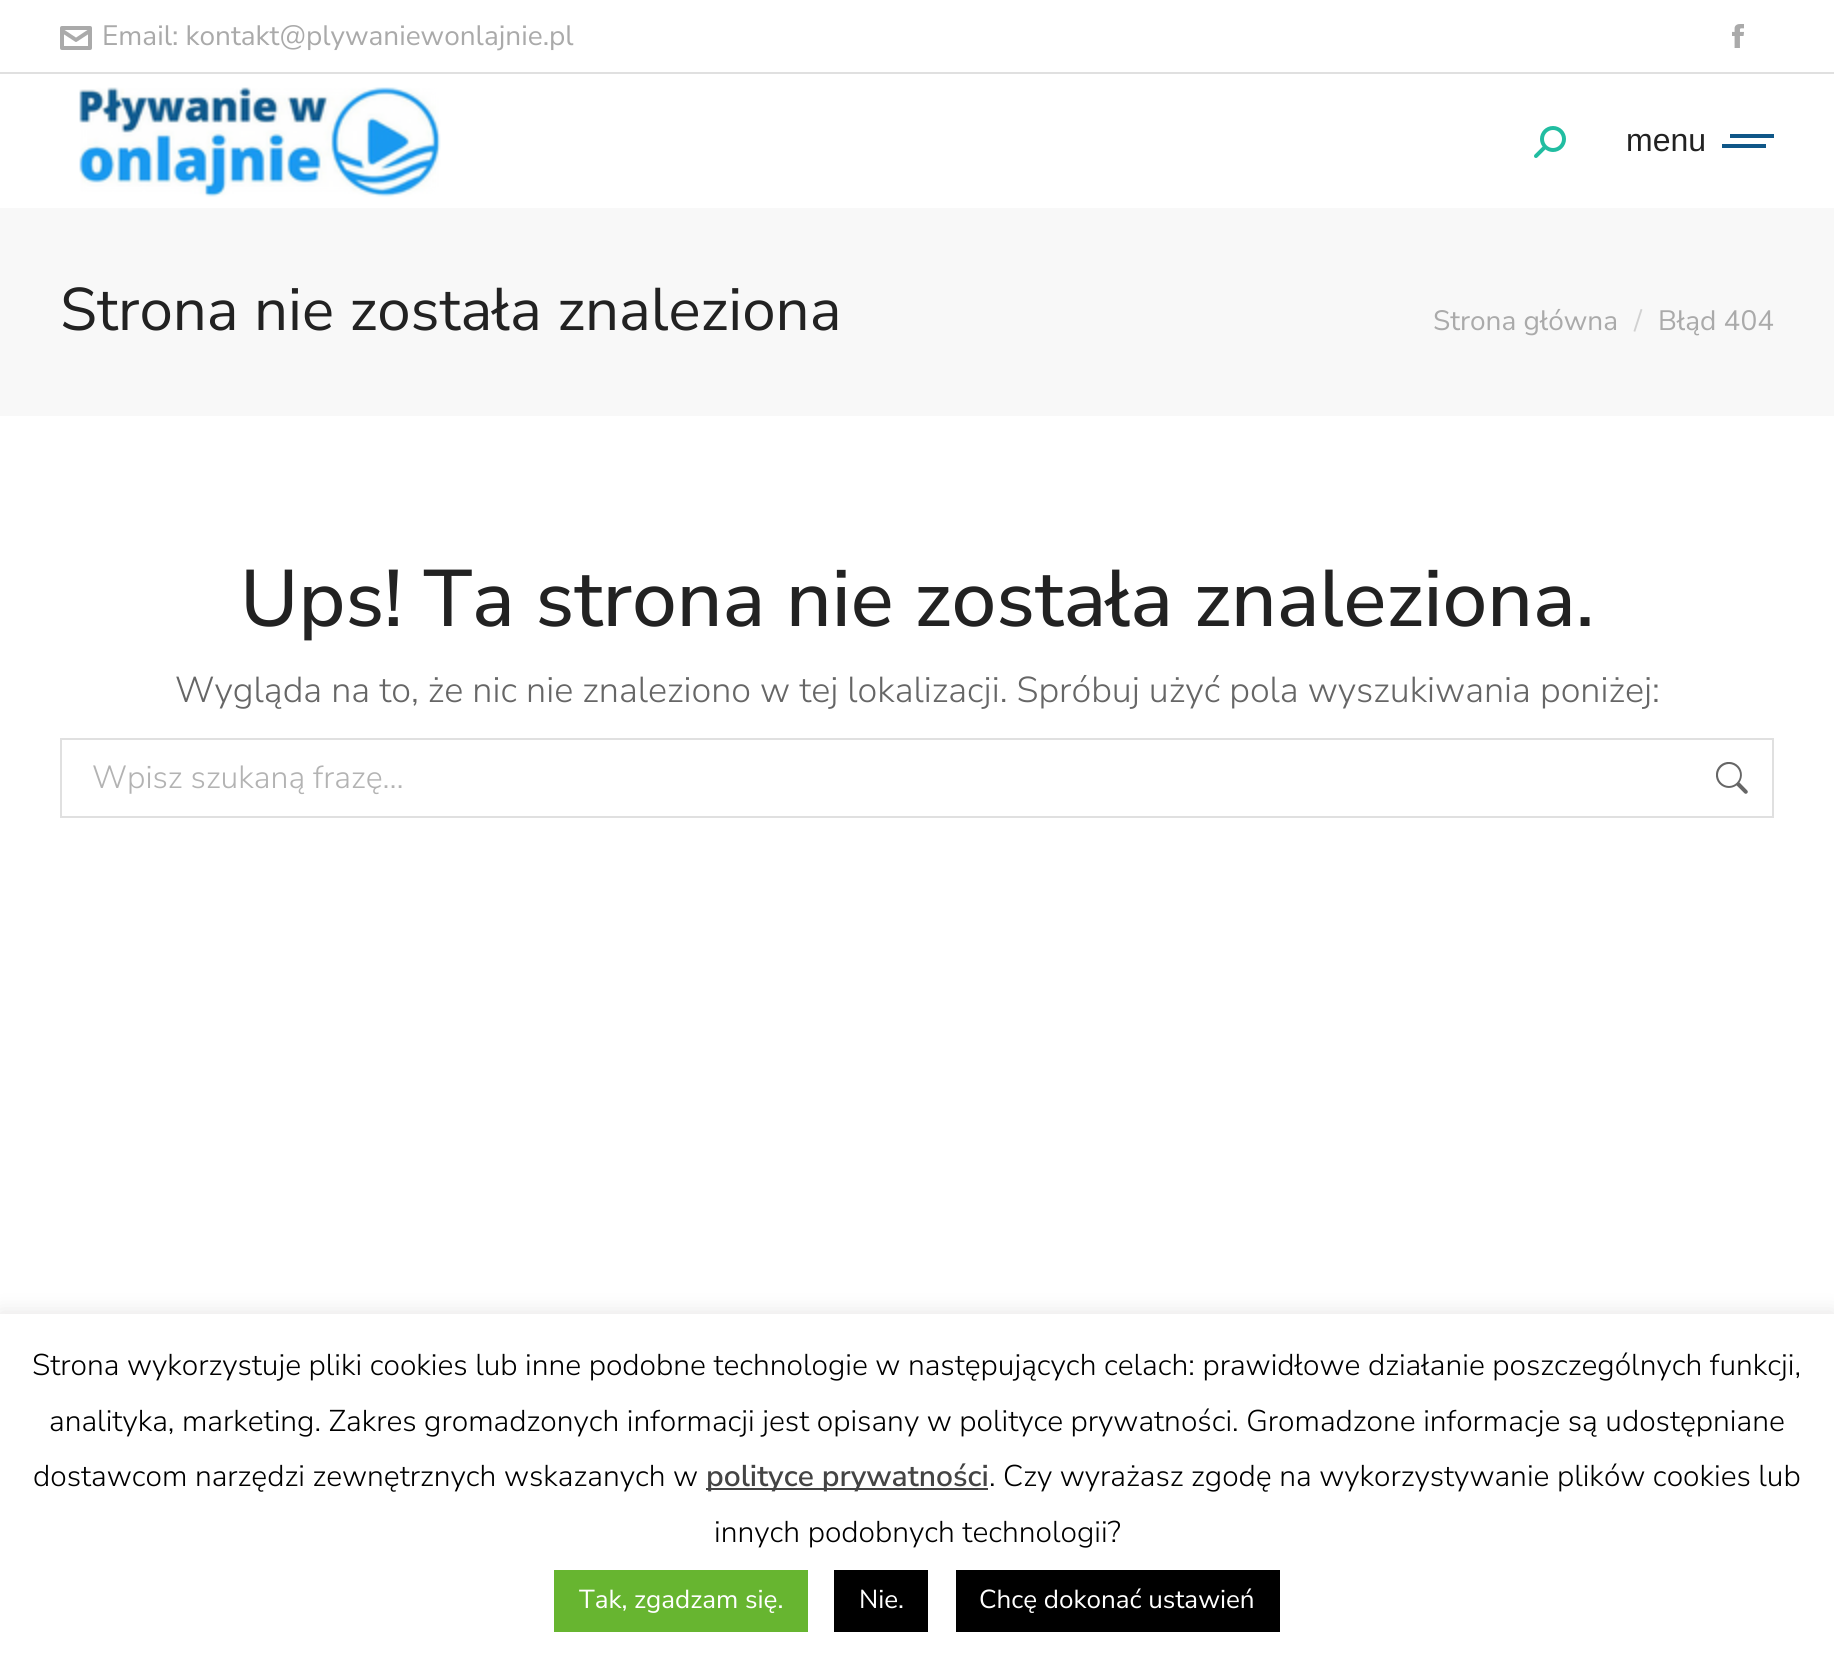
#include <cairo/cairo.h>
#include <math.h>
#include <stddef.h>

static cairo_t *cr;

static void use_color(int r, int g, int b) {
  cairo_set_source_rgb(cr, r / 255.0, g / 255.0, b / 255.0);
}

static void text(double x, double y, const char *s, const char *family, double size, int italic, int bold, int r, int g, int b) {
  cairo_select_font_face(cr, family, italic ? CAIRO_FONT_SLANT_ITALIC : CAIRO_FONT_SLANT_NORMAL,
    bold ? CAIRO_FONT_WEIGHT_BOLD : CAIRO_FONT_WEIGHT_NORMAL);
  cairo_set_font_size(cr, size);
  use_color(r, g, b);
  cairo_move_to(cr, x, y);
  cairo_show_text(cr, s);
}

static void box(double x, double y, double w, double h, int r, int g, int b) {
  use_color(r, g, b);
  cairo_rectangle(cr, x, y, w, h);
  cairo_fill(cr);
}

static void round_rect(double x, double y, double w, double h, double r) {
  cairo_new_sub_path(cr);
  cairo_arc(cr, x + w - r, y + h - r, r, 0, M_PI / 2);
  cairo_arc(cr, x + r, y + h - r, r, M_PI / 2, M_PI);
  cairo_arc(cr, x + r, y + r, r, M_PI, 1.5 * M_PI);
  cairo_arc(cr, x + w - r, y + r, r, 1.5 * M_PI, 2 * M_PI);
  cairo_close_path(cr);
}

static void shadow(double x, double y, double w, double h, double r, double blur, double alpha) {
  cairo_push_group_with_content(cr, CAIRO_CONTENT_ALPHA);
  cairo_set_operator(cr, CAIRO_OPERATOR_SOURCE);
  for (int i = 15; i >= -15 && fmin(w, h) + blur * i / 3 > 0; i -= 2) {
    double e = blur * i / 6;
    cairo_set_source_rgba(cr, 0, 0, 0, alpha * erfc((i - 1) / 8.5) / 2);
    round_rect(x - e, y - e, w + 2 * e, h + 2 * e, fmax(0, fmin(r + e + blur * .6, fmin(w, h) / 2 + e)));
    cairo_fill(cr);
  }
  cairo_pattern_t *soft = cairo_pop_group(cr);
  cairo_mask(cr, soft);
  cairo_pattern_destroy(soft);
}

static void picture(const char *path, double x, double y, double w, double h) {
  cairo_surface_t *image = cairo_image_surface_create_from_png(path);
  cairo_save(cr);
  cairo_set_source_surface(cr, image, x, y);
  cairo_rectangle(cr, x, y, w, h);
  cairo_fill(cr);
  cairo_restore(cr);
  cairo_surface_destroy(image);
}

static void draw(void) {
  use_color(255, 255, 255);
  cairo_paint(cr);
  picture("img_01.png", 60, 26, 32, 24);
  picture("img_02.png", 1732, 24, 12, 24);
  box(0, 72, 1834, 2, 224, 224, 224);
  picture("img_03.png", 79, 87, 362, 110);
  picture("img_04.png", 1534, 126, 32, 32);
  box(1730, 134, 44, 4, 15, 87, 136);
  box(1722, 144, 44, 4, 15, 87, 136);
  box(0, 208, 1834, 208, 248, 248, 248);
  cairo_rectangle(cr, 61, 739, 1712, 78);
  use_color(224, 224, 224);
  cairo_stroke(cr);
  picture("img_05.png", 1716, 762, 32, 32);
  use_color(172, 171, 171);
  shadow(0, 1312, 1834, 352, 0, 10, 0.3);
  box(0, 1314, 1834, 351, 255, 255, 255);
  box(706, 1488, 282, 2, 68, 68, 68);
  box(554, 1570, 254, 62, 103, 181, 48);
  box(834, 1570, 94, 62, 0, 0, 0);
  box(956, 1570, 324, 62, 0, 0, 0);
  text(102, 45, "Email: kontakt@plywaniewonlajnie.pl", "Nunito Sans", 28, 0, 0, 170, 170, 170);
  text(1626, 151, "menu", "Liberation Sans", 32, 0, 0, 34, 34, 34);
  text(60, 330, "Strona nie została znaleziona", "Nunito Sans", 60, 0, 0, 34, 34, 34);
  text(1433, 330, "Strona główna", "Nunito Sans", 28, 0, 0, 170, 170, 170);
  text(1634, 330, "/", "Nunito Sans", 28, 0, 0, 209, 209, 209);
  text(1658, 330, "Błąd 404", "Nunito Sans", 28, 0, 0, 170, 170, 170);
  text(240, 626, "Ups! Ta strona nie została znaleziona.", "Nunito Sans Medium", 80, 0, 0, 34, 34, 34);
  text(175, 702, "Wygląda na to, że nic nie znaleziono w tej lokalizacji. Spróbuj użyć pola wyszukiwania poniżej:", "Nunito Sans Light", 36, 0, 0, 102, 102, 102);
  text(92, 788, "Wpisz szukaną frazę…", "Nunito Sans Light", 32, 0, 0, 179, 179, 179);
  text(32, 1375, "Strona wykorzystuje pliki cookies lub inne podobne technologie w następujących celach: prawidłowe działanie poszczególnych funkcji,", "Nunito Sans Light", 30, 0, 0, 0, 0, 0);
  text(49, 1431, "analityka, marketing. Zakres gromadzonych informacji jest opisany w polityce prywatności. Gromadzone informacje są udostępniane", "Nunito Sans Light", 30, 0, 0, 0, 0, 0);
  text(33, 1486, "dostawcom narzędzi zewnętrznych wskazanych w", "Nunito Sans Light", 30, 0, 0, 0, 0, 0);
  text(706, 1486, "polityce prywatności", "Nunito Sans SemiBold", 30, 0, 0, 68, 68, 68);
  text(989, 1486, ". Czy wyrażasz zgodę na wykorzystywanie plików cookies lub", "Nunito Sans Light", 30, 0, 0, 0, 0, 0);
  text(714, 1542, "innych podobnych technologii?", "Nunito Sans Light", 30, 0, 0, 0, 0, 0);
  text(579, 1608, "Tak, zgadzam się.", "Nunito Sans", 26, 0, 0, 255, 255, 255);
  text(859, 1608, "Nie.", "Nunito Sans", 26, 0, 0, 255, 255, 255);
  text(979, 1608, "Chcę dokonać ustawień", "Nunito Sans", 26, 0, 0, 255, 255, 255);
}

int main(void) {
  cairo_surface_t *surface = cairo_image_surface_create(CAIRO_FORMAT_RGB24, 1834, 1665);
  cr = cairo_create(surface);
  cairo_font_options_t *options = cairo_font_options_create();
  cairo_font_options_set_hint_metrics(options, CAIRO_HINT_METRICS_OFF);
  cairo_font_options_set_hint_style(options, CAIRO_HINT_STYLE_NONE);
  cairo_set_font_options(cr, options);
  cairo_set_miter_limit(cr, 4);
  draw();
  cairo_surface_write_to_png(surface, "out.png");
  cairo_font_options_destroy(options);
  cairo_destroy(cr);
  cairo_surface_destroy(surface);
  return 0;
}
